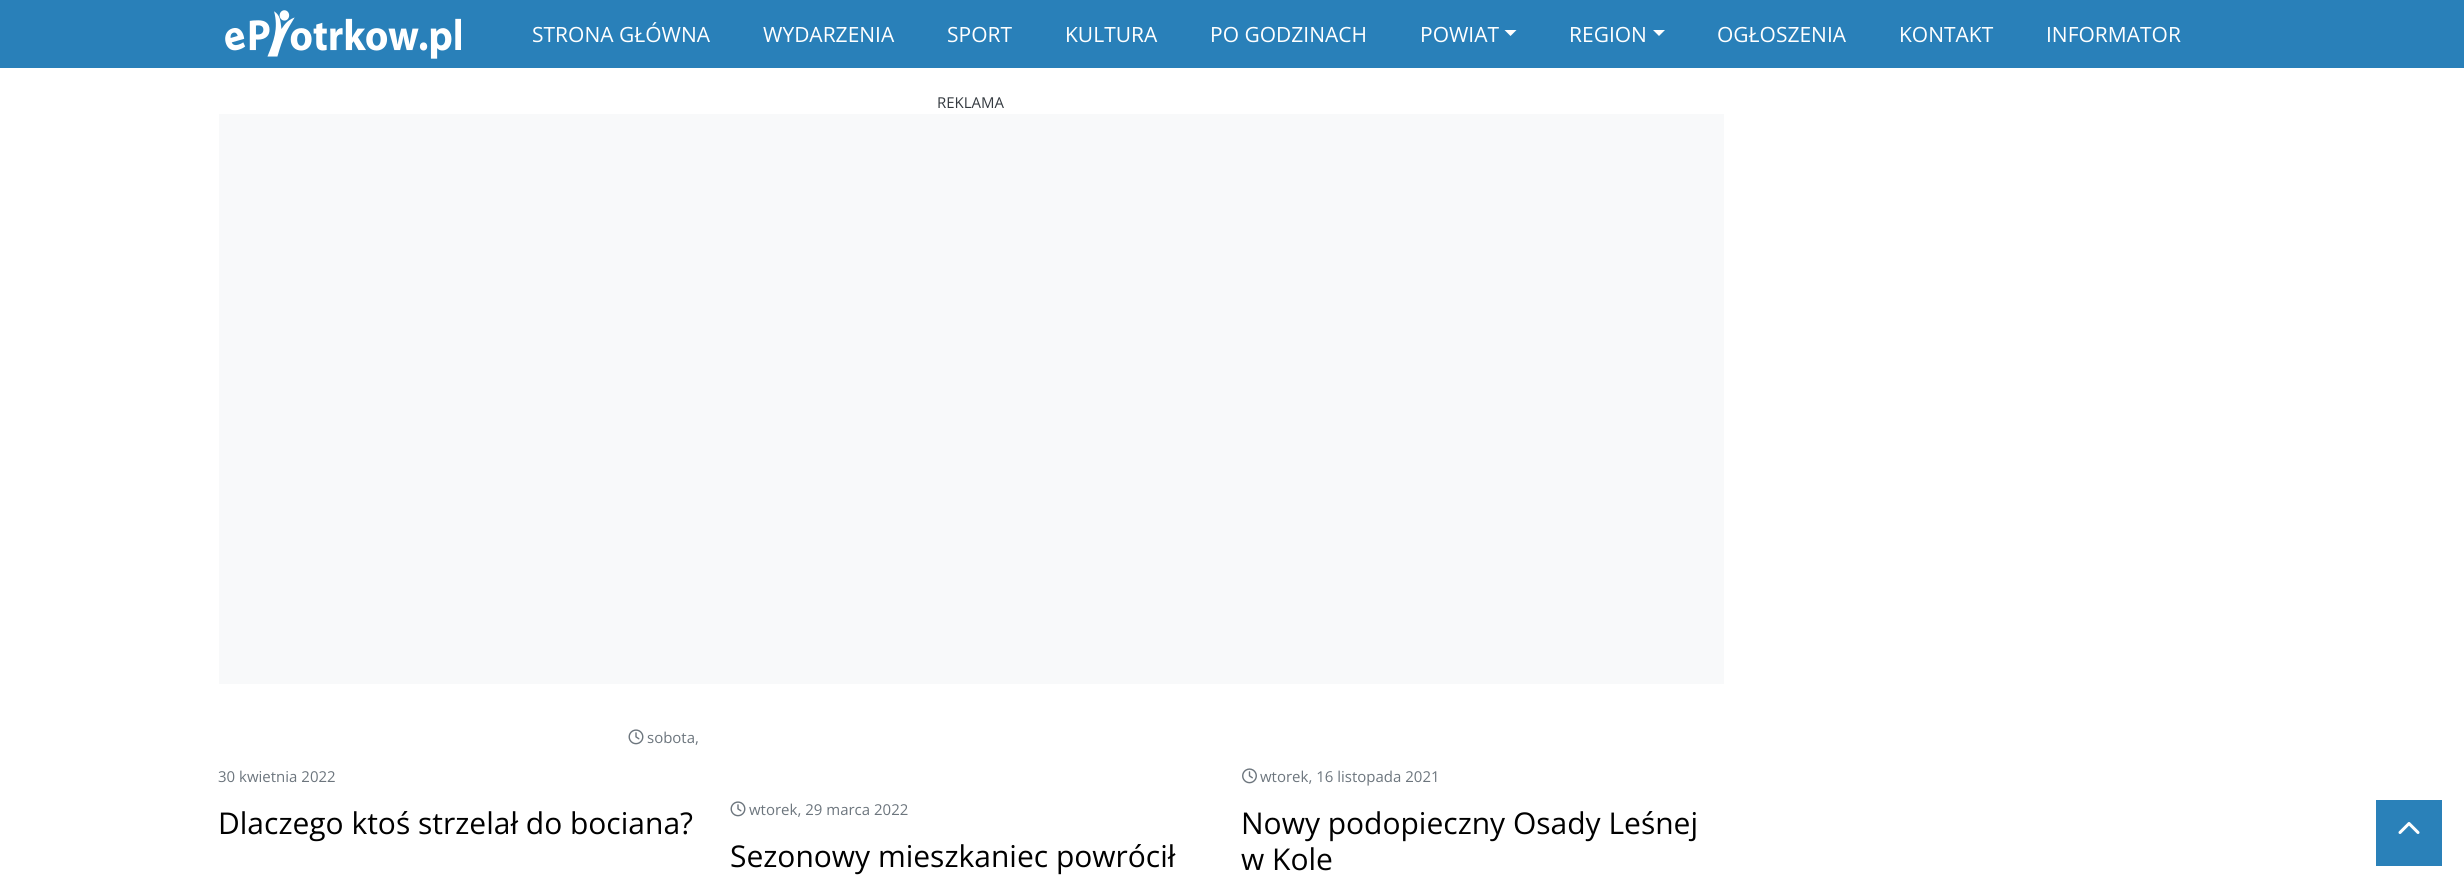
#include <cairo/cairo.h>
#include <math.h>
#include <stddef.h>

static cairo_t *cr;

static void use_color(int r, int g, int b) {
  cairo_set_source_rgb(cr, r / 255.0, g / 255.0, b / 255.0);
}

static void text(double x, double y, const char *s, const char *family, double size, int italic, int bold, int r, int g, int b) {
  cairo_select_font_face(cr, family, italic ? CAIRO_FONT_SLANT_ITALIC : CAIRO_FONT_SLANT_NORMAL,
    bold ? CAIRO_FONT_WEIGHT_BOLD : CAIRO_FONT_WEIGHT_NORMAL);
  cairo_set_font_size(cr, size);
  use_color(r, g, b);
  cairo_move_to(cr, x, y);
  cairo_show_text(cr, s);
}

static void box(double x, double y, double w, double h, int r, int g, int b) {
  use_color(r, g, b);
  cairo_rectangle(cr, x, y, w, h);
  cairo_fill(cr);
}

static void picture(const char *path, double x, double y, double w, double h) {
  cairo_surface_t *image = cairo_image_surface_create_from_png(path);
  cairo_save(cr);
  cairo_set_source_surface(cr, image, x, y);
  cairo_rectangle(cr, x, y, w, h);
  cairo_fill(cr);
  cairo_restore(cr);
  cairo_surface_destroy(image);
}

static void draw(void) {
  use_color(255, 255, 255);
  cairo_paint(cr);
  box(0, 0, 2464, 68, 41, 128, 185);
  picture("img_01.png", 225, 10, 236, 49);
  use_color(255, 255, 255);
  cairo_new_path(cr);
  cairo_move_to(cr, 1504.5, 30);
  cairo_line_to(cr, 1516.5, 30);
  cairo_line_to(cr, 1510.5, 36);
  cairo_close_path(cr);
  cairo_fill(cr);
  cairo_new_path(cr);
  cairo_move_to(cr, 1653, 30);
  cairo_line_to(cr, 1665, 30);
  cairo_line_to(cr, 1659, 36);
  cairo_close_path(cr);
  cairo_fill(cr);
  box(219, 114, 1505, 570, 248, 249, 250);
  picture("img_02.png", 628, 729, 16, 16);
  picture("img_02.png", 730, 801, 16, 16);
  picture("img_03.png", 1242, 768, 15, 16);
  box(2376, 800, 66, 66, 42, 129, 185);
  picture("img_04.png", 2398, 822, 22, 12);
  text(532, 42, "STRONA GŁÓWNA", "Open Sans", 21, 0, 0, 255, 255, 255);
  text(763, 42, "WYDARZENIA", "Open Sans", 21, 0, 0, 255, 255, 255);
  text(947, 42, "SPORT", "Open Sans", 21, 0, 0, 255, 255, 255);
  text(1065, 42, "KULTURA", "Open Sans", 21, 0, 0, 255, 255, 255);
  text(1210, 42, "PO GODZINACH", "Open Sans", 21, 0, 0, 255, 255, 255);
  text(1420, 42, "POWIAT", "Open Sans", 21, 0, 0, 255, 255, 255);
  text(1569, 42, "REGION", "Open Sans", 21, 0, 0, 255, 255, 255);
  text(1717, 42, "OGŁOSZENIA", "Open Sans", 21, 0, 0, 255, 255, 255);
  text(1899, 42, "KONTAKT", "Open Sans", 21, 0, 0, 255, 255, 255);
  text(2046, 42, "INFORMATOR", "Open Sans", 21, 0, 0, 255, 255, 255);
  text(937, 108, "REKLAMA", "Open Sans", 15, 0, 0, 52, 58, 64);
  text(647, 743, "sobota,", "Open Sans", 15, 0, 0, 108, 117, 125);
  text(218, 782, "30 kwietnia 2022", "Open Sans", 15, 0, 0, 108, 117, 125);
  text(218, 834, "Dlaczego ktoś strzelał do bociana?", "Open Sans", 30, 0, 0, 0, 0, 0);
  text(749, 815, "wtorek, 29 marca 2022", "Open Sans", 15, 0, 0, 108, 117, 125);
  text(730, 867, "Sezonowy mieszkaniec powrócił", "Open Sans", 30, 0, 0, 0, 0, 0);
  text(1260, 782, "wtorek, 16 listopada 2021", "Open Sans", 15, 0, 0, 108, 117, 125);
  text(1241, 834, "Nowy podopieczny Osady Leśnej", "Open Sans", 30, 0, 0, 0, 0, 0);
  text(1241, 870, "w Kole", "Open Sans", 30, 0, 0, 0, 0, 0);
}

int main(void) {
  cairo_surface_t *surface = cairo_image_surface_create(CAIRO_FORMAT_RGB24, 2464, 887);
  cr = cairo_create(surface);
  cairo_font_options_t *options = cairo_font_options_create();
  cairo_font_options_set_hint_metrics(options, CAIRO_HINT_METRICS_OFF);
  cairo_font_options_set_hint_style(options, CAIRO_HINT_STYLE_NONE);
  cairo_set_font_options(cr, options);
  cairo_set_miter_limit(cr, 4);
  draw();
  cairo_surface_write_to_png(surface, "out.png");
  cairo_font_options_destroy(options);
  cairo_destroy(cr);
  cairo_surface_destroy(surface);
  return 0;
}
